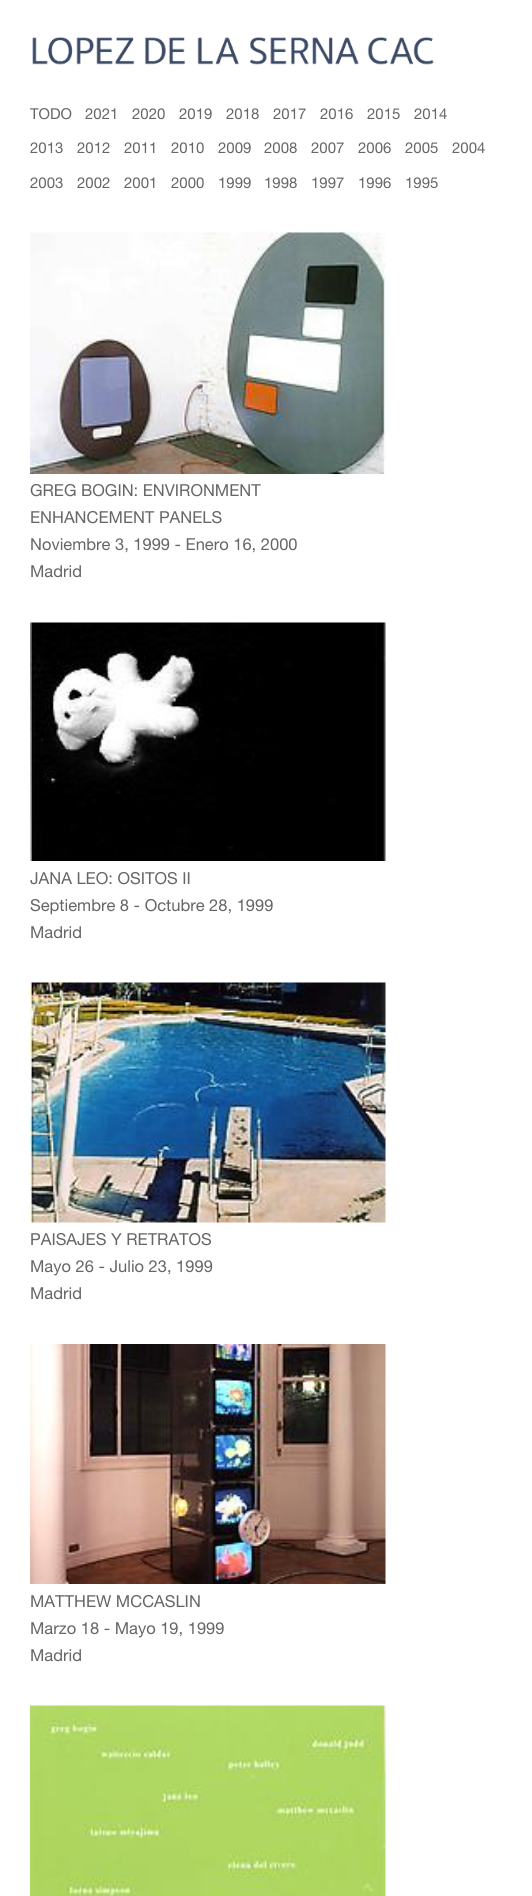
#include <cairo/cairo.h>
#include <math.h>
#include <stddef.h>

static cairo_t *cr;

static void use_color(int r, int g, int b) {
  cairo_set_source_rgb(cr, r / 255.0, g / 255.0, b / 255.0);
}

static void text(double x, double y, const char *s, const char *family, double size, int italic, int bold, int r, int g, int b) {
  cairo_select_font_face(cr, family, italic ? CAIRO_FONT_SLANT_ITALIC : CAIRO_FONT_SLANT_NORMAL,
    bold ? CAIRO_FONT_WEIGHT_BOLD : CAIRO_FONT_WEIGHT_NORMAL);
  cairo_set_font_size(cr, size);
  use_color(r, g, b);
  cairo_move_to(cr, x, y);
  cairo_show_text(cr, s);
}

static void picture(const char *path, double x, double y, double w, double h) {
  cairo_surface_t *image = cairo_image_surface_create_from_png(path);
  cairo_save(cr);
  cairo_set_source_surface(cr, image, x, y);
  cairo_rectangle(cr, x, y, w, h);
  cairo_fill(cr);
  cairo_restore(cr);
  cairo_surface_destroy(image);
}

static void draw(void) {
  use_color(255, 255, 255);
  cairo_paint(cr);
  picture("img_01.png", 32, 37, 402, 28);
  picture("img_02.png", 30, 232, 356, 242);
  picture("img_03.png", 30, 622, 356, 239);
  picture("img_04.png", 30, 982, 356, 241);
  picture("img_05.png", 30, 1344, 356, 240);
  picture("img_06.png", 30, 1705, 356, 191);
  text(30, 119, "TODO", "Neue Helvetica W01", 15, 0, 0, 102, 102, 102);
  text(85, 119, "2021", "Neue Helvetica W01", 15, 0, 0, 102, 102, 102);
  text(132, 119, "2020", "Neue Helvetica W01", 15, 0, 0, 102, 102, 102);
  text(179, 119, "2019", "Neue Helvetica W01", 15, 0, 0, 102, 102, 102);
  text(226, 119, "2018", "Neue Helvetica W01", 15, 0, 0, 102, 102, 102);
  text(273, 119, "2017", "Neue Helvetica W01", 15, 0, 0, 102, 102, 102);
  text(320, 119, "2016", "Neue Helvetica W01", 15, 0, 0, 102, 102, 102);
  text(367, 119, "2015", "Neue Helvetica W01", 15, 0, 0, 102, 102, 102);
  text(414, 119, "2014", "Neue Helvetica W01", 15, 0, 0, 102, 102, 102);
  text(30, 153, "2013", "Neue Helvetica W01", 15, 0, 0, 102, 102, 102);
  text(77, 153, "2012", "Neue Helvetica W01", 15, 0, 0, 102, 102, 102);
  text(124, 153, "2011", "Neue Helvetica W01", 15, 0, 0, 102, 102, 102);
  text(171, 153, "2010", "Neue Helvetica W01", 15, 0, 0, 102, 102, 102);
  text(218, 153, "2009", "Neue Helvetica W01", 15, 0, 0, 102, 102, 102);
  text(264, 153, "2008", "Neue Helvetica W01", 15, 0, 0, 102, 102, 102);
  text(311, 153, "2007", "Neue Helvetica W01", 15, 0, 0, 102, 102, 102);
  text(358, 153, "2006", "Neue Helvetica W01", 15, 0, 0, 102, 102, 102);
  text(405, 153, "2005", "Neue Helvetica W01", 15, 0, 0, 102, 102, 102);
  text(452, 153, "2004", "Neue Helvetica W01", 15, 0, 0, 102, 102, 102);
  text(30, 188, "2003", "Neue Helvetica W01", 15, 0, 0, 102, 102, 102);
  text(77, 188, "2002", "Neue Helvetica W01", 15, 0, 0, 102, 102, 102);
  text(124, 188, "2001", "Neue Helvetica W01", 15, 0, 0, 102, 102, 102);
  text(171, 188, "2000", "Neue Helvetica W01", 15, 0, 0, 102, 102, 102);
  text(218, 188, "1999", "Neue Helvetica W01", 15, 0, 0, 102, 102, 102);
  text(264, 188, "1998", "Neue Helvetica W01", 15, 0, 0, 102, 102, 102);
  text(311, 188, "1997", "Neue Helvetica W01", 15, 0, 0, 102, 102, 102);
  text(358, 188, "1996", "Neue Helvetica W01", 15, 0, 0, 102, 102, 102);
  text(405, 188, "1995", "Neue Helvetica W01", 15, 0, 0, 102, 102, 102);
  text(30, 496, "GREG BOGIN: ENVIRONMENT", "Neue Helvetica W01", 16.5, 0, 0, 102, 102, 102);
  text(30, 523, "ENHANCEMENT PANELS", "Neue Helvetica W01", 16.5, 0, 0, 102, 102, 102);
  text(30, 550, "Noviembre 3, 1999 - Enero 16, 2000", "Neue Helvetica W01", 16.5, 0, 0, 102, 102, 102);
  text(30, 577, "Madrid", "Neue Helvetica W01", 16.5, 0, 0, 102, 102, 102);
  text(30, 884, "JANA LEO: OSITOS II", "Neue Helvetica W01", 16.5, 0, 0, 102, 102, 102);
  text(30, 911, "Septiembre 8 - Octubre 28, 1999", "Neue Helvetica W01", 16.5, 0, 0, 102, 102, 102);
  text(30, 938, "Madrid", "Neue Helvetica W01", 16.5, 0, 0, 102, 102, 102);
  text(30, 1245, "PAISAJES Y RETRATOS", "Neue Helvetica W01", 16.5, 0, 0, 102, 102, 102);
  text(30, 1272, "Mayo 26 - Julio 23, 1999", "Neue Helvetica W01", 16.5, 0, 0, 102, 102, 102);
  text(30, 1299, "Madrid", "Neue Helvetica W01", 16.5, 0, 0, 102, 102, 102);
  text(30, 1607, "MATTHEW MCCASLIN", "Neue Helvetica W01", 16.5, 0, 0, 102, 102, 102);
  text(30, 1634, "Marzo 18 - Mayo 19, 1999", "Neue Helvetica W01", 16.5, 0, 0, 102, 102, 102);
  text(30, 1661, "Madrid", "Neue Helvetica W01", 16.5, 0, 0, 102, 102, 102);
}

int main(void) {
  cairo_surface_t *surface = cairo_image_surface_create(CAIRO_FORMAT_RGB24, 532, 1896);
  cr = cairo_create(surface);
  cairo_font_options_t *options = cairo_font_options_create();
  cairo_font_options_set_hint_metrics(options, CAIRO_HINT_METRICS_OFF);
  cairo_font_options_set_hint_style(options, CAIRO_HINT_STYLE_NONE);
  cairo_set_font_options(cr, options);
  cairo_set_miter_limit(cr, 4);
  draw();
  cairo_surface_write_to_png(surface, "out.png");
  cairo_font_options_destroy(options);
  cairo_destroy(cr);
  cairo_surface_destroy(surface);
  return 0;
}
